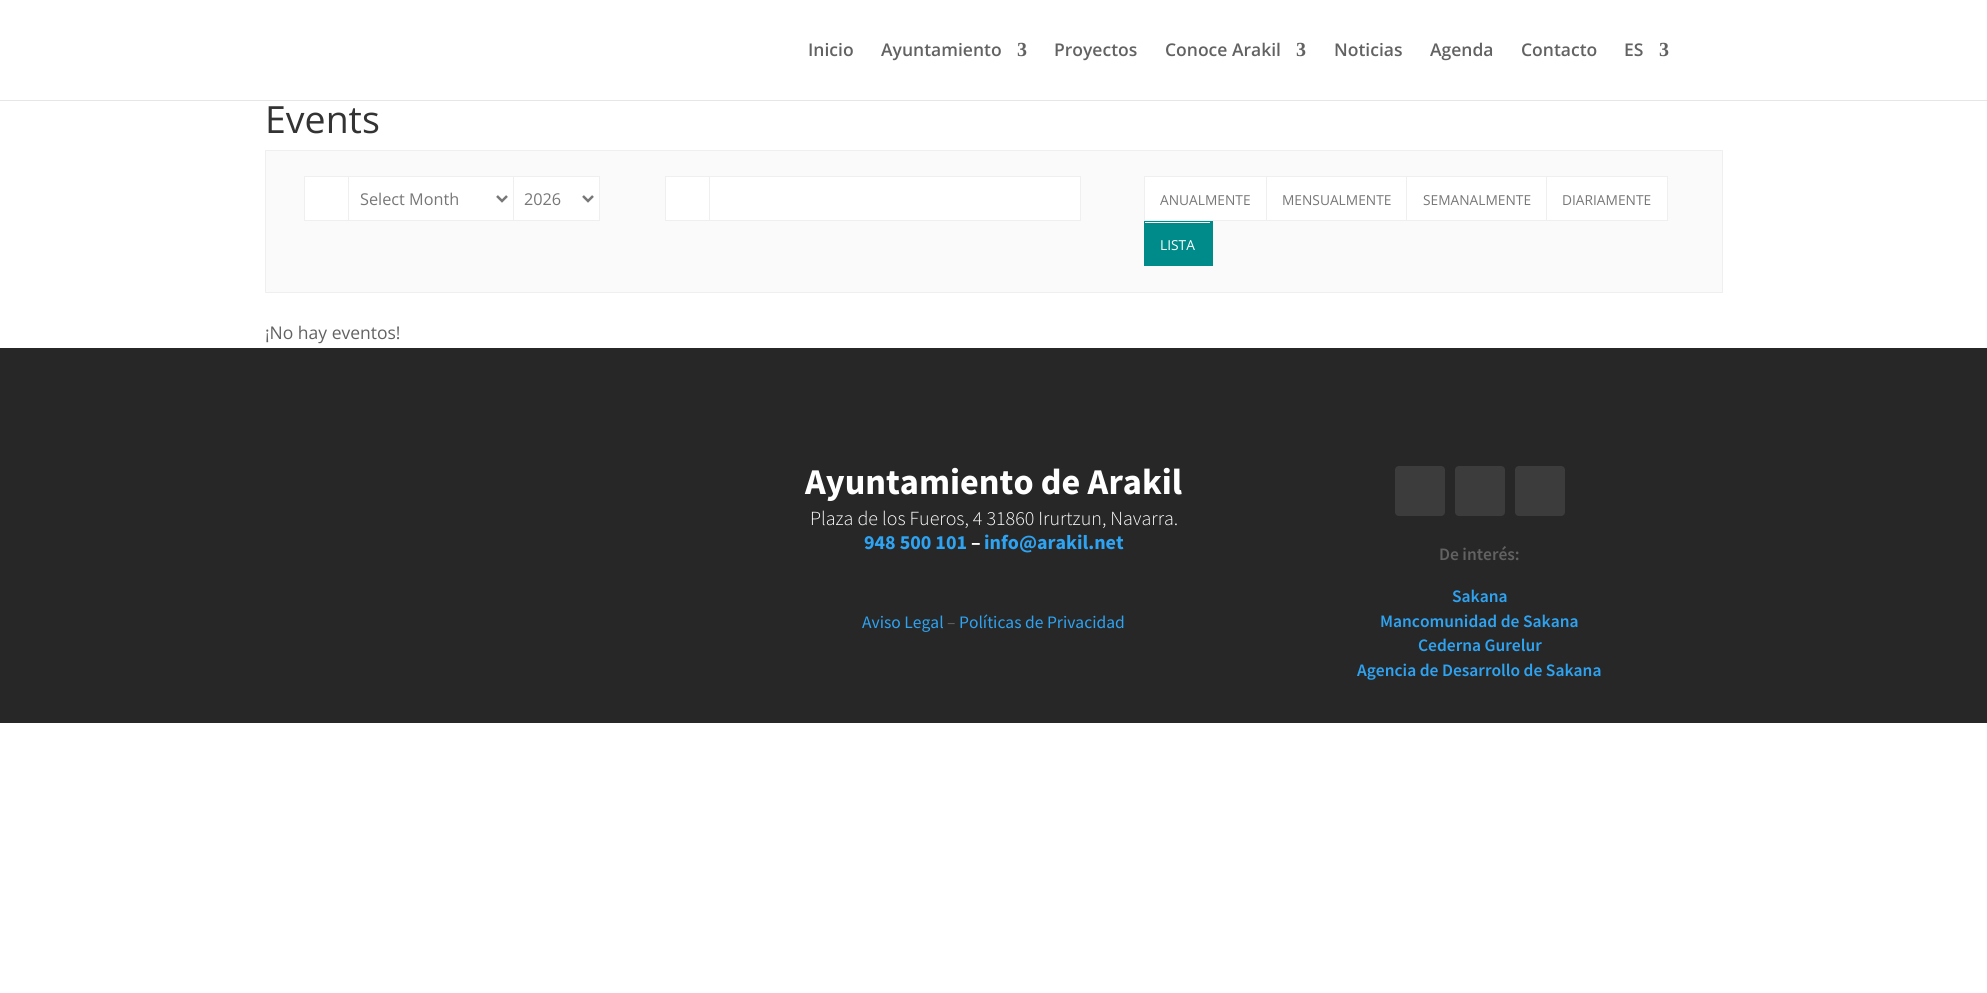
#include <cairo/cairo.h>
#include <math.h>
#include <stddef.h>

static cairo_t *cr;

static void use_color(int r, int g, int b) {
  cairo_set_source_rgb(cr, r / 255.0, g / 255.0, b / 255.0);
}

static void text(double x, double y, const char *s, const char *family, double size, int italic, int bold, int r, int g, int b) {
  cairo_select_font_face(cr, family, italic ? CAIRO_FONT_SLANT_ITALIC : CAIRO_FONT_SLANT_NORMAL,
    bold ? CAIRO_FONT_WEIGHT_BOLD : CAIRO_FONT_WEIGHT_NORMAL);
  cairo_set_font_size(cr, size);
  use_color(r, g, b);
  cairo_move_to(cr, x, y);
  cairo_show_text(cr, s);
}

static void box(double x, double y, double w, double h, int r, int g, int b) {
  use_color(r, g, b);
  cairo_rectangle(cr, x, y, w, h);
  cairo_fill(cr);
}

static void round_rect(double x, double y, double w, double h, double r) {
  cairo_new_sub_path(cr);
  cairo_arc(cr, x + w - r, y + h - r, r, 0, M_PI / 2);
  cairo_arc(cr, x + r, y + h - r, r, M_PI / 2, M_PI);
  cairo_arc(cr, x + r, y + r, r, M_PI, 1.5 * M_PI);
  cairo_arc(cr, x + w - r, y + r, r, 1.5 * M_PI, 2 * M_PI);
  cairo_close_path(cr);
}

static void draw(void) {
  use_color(255, 255, 255);
  cairo_paint(cr);
  use_color(230, 230, 230);
  cairo_new_path(cr);
  cairo_move_to(cr, 0, 100);
  cairo_line_to(cr, 0, 101);
  cairo_line_to(cr, 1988, 101);
  cairo_line_to(cr, 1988, 1);
  cairo_line_to(cr, 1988, 100);
  cairo_close_path(cr);
  cairo_fill(cr);
  use_color(250, 250, 250);
  cairo_rectangle(cr, 265.5, 150.5, 1457, 142);
  cairo_fill_preserve(cr);
  use_color(239, 239, 239);
  cairo_set_line_width(cr, 1);
  cairo_stroke(cr);
  use_color(255, 255, 255);
  cairo_rectangle(cr, 304.5, 176.5, 44, 44);
  cairo_fill_preserve(cr);
  use_color(239, 239, 239);
  cairo_stroke(cr);
  use_color(255, 255, 255);
  cairo_rectangle(cr, 348.5, 176.5, 165, 44);
  cairo_fill_preserve(cr);
  use_color(239, 239, 239);
  cairo_stroke(cr);
  cairo_new_path(cr);
  cairo_move_to(cr, 497, 196);
  cairo_line_to(cr, 502, 201);
  cairo_line_to(cr, 507, 196);
  use_color(119, 119, 119);
  cairo_set_line_width(cr, 2.5);
  cairo_stroke(cr);
  use_color(255, 255, 255);
  cairo_rectangle(cr, 513.5, 176.5, 86, 44);
  cairo_fill_preserve(cr);
  use_color(239, 239, 239);
  cairo_set_line_width(cr, 1);
  cairo_stroke(cr);
  cairo_new_path(cr);
  cairo_move_to(cr, 583, 196);
  cairo_line_to(cr, 588, 201);
  cairo_line_to(cr, 593, 196);
  use_color(119, 119, 119);
  cairo_set_line_width(cr, 2.5);
  cairo_stroke(cr);
  use_color(255, 255, 255);
  cairo_rectangle(cr, 665.5, 176.5, 44, 44);
  cairo_fill_preserve(cr);
  use_color(239, 239, 239);
  cairo_set_line_width(cr, 1);
  cairo_stroke(cr);
  use_color(255, 255, 255);
  cairo_rectangle(cr, 709.5, 176.5, 371, 44);
  cairo_fill_preserve(cr);
  use_color(239, 239, 239);
  cairo_stroke(cr);
  box(1145, 177, 121, 43, 255, 255, 255);
  cairo_rectangle(cr, 1144.5, 176.5, 123, 44);
  use_color(239, 239, 239);
  cairo_stroke(cr);
  box(1267, 177, 139, 43, 255, 255, 255);
  cairo_rectangle(cr, 1266.5, 176.5, 141, 44);
  use_color(239, 239, 239);
  cairo_stroke(cr);
  box(1407, 177, 139, 43, 255, 255, 255);
  cairo_rectangle(cr, 1406.5, 176.5, 141, 44);
  use_color(239, 239, 239);
  cairo_stroke(cr);
  use_color(255, 255, 255);
  cairo_rectangle(cr, 1546.5, 176.5, 121, 44);
  cairo_fill_preserve(cr);
  use_color(239, 239, 239);
  cairo_stroke(cr);
  box(1145, 223, 65, 42, 0, 139, 139);
  box(1144, 221, 69, 1, 0, 139, 139);
  box(1210, 221, 3, 45, 0, 139, 139);
  box(1144, 265, 69, 1, 0, 139, 139);
  box(1144, 221, 1, 45, 0, 139, 139);
  box(0, 348, 1987, 375, 39, 39, 39);
  use_color(60, 60, 60);
  round_rect(1395, 466, 50, 50, 4);
  cairo_fill(cr);
  round_rect(1455, 466, 50, 50, 4);
  cairo_fill(cr);
  round_rect(1515, 466, 50, 50, 4);
  cairo_fill(cr);
  text(808, 56, "Inicio", "Open Sans SemiBold", 17.5, 0, 0, 98, 98, 98);
  text(881, 56, "Ayuntamiento", "Open Sans SemiBold", 17.5, 0, 0, 98, 98, 98);
  text(1017, 56, "3", "Liberation Serif", 20, 0, 1, 98, 98, 98);
  text(1054, 56, "Proyectos", "Open Sans SemiBold", 17.5, 0, 0, 98, 98, 98);
  text(1165, 56, "Conoce Arakil", "Open Sans SemiBold", 17.5, 0, 0, 98, 98, 98);
  text(1296, 56, "3", "Liberation Serif", 20, 0, 1, 98, 98, 98);
  text(1334, 56, "Noticias", "Open Sans SemiBold", 17.5, 0, 0, 98, 98, 98);
  text(1430, 56, "Agenda", "Open Sans SemiBold", 17.5, 0, 0, 98, 98, 98);
  text(1521, 56, "Contacto", "Open Sans SemiBold", 17.5, 0, 0, 98, 98, 98);
  text(1624, 56, "ES", "Open Sans SemiBold", 17.5, 0, 0, 98, 98, 98);
  text(1659, 56, "3", "Liberation Serif", 20, 0, 1, 98, 98, 98);
  text(265, 133, "Events", "Open Sans", 37.5, 0, 0, 51, 51, 51);
  text(360, 205, "Select Month", "Open Sans", 16.25, 0, 0, 119, 119, 119);
  text(524, 205, "2026", "Open Sans", 16.25, 0, 0, 119, 119, 119);
  text(1160, 205, "ANUALMENTE", "Open Sans", 13.75, 0, 0, 119, 119, 119);
  text(1282, 205, "MENSUALMENTE", "Open Sans", 13.75, 0, 0, 119, 119, 119);
  text(1423, 205, "SEMANALMENTE", "Open Sans", 13.75, 0, 0, 119, 119, 119);
  text(1562, 205, "DIARIAMENTE", "Open Sans", 13.75, 0, 0, 119, 119, 119);
  text(1160, 250, "LISTA", "Open Sans", 13.75, 0, 0, 255, 255, 255);
  text(265, 339, "¡No hay eventos!", "Open Sans", 17.5, 0, 0, 98, 98, 98);
  text(805, 494, "Ayuntamiento de Arakil", "Source Sans Pro", 36.25, 0, 1, 255, 255, 255);
  text(810, 525, "Plaza de los Fueros, 4 31860 Irurtzun, Navarra.", "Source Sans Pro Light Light", 20, 0, 0, 255, 255, 255);
  text(864, 549, "948 500 101", "Source Sans Pro", 20, 0, 1, 46, 163, 242);
  text(971, 549, "–", "Source Sans Pro", 20, 0, 1, 255, 255, 255);
  text(984, 549, "info@arakil.net", "Source Sans Pro", 20, 0, 1, 46, 163, 242);
  text(862, 628, "Aviso Legal", "Source Sans Pro", 17.5, 0, 0, 46, 163, 242);
  text(947, 628, "–", "Source Sans Pro", 17.5, 0, 0, 98, 98, 98);
  text(959, 628, "Políticas de Privacidad", "Source Sans Pro", 17.5, 0, 0, 46, 163, 242);
  text(1439, 560, "De interés:", "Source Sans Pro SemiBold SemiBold", 17.5, 0, 0, 98, 98, 98);
  text(1452, 602, "Sakana", "Source Sans Pro SemiBold SemiBold", 17.5, 0, 0, 46, 163, 242);
  text(1380, 627, "Mancomunidad de Sakana", "Source Sans Pro SemiBold SemiBold", 17.5, 0, 0, 46, 163, 242);
  text(1418, 651, "Cederna Gurelur", "Source Sans Pro SemiBold SemiBold", 17.5, 0, 0, 46, 163, 242);
  text(1357, 676, "Agencia de Desarrollo de Sakana", "Source Sans Pro SemiBold SemiBold", 17.5, 0, 0, 46, 163, 242);
}

int main(void) {
  cairo_surface_t *surface = cairo_image_surface_create(CAIRO_FORMAT_RGB24, 1987, 993);
  cr = cairo_create(surface);
  cairo_font_options_t *options = cairo_font_options_create();
  cairo_font_options_set_hint_metrics(options, CAIRO_HINT_METRICS_OFF);
  cairo_font_options_set_hint_style(options, CAIRO_HINT_STYLE_NONE);
  cairo_set_font_options(cr, options);
  cairo_set_miter_limit(cr, 4);
  draw();
  cairo_surface_write_to_png(surface, "out.png");
  cairo_font_options_destroy(options);
  cairo_destroy(cr);
  cairo_surface_destroy(surface);
  return 0;
}
